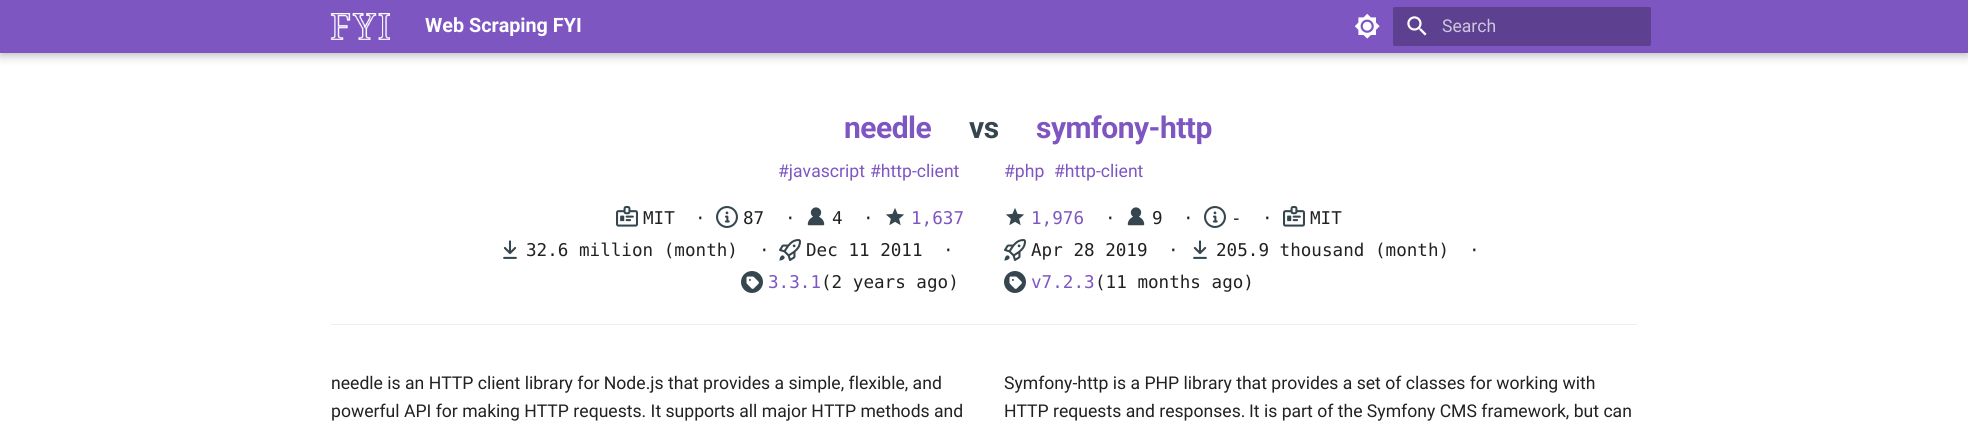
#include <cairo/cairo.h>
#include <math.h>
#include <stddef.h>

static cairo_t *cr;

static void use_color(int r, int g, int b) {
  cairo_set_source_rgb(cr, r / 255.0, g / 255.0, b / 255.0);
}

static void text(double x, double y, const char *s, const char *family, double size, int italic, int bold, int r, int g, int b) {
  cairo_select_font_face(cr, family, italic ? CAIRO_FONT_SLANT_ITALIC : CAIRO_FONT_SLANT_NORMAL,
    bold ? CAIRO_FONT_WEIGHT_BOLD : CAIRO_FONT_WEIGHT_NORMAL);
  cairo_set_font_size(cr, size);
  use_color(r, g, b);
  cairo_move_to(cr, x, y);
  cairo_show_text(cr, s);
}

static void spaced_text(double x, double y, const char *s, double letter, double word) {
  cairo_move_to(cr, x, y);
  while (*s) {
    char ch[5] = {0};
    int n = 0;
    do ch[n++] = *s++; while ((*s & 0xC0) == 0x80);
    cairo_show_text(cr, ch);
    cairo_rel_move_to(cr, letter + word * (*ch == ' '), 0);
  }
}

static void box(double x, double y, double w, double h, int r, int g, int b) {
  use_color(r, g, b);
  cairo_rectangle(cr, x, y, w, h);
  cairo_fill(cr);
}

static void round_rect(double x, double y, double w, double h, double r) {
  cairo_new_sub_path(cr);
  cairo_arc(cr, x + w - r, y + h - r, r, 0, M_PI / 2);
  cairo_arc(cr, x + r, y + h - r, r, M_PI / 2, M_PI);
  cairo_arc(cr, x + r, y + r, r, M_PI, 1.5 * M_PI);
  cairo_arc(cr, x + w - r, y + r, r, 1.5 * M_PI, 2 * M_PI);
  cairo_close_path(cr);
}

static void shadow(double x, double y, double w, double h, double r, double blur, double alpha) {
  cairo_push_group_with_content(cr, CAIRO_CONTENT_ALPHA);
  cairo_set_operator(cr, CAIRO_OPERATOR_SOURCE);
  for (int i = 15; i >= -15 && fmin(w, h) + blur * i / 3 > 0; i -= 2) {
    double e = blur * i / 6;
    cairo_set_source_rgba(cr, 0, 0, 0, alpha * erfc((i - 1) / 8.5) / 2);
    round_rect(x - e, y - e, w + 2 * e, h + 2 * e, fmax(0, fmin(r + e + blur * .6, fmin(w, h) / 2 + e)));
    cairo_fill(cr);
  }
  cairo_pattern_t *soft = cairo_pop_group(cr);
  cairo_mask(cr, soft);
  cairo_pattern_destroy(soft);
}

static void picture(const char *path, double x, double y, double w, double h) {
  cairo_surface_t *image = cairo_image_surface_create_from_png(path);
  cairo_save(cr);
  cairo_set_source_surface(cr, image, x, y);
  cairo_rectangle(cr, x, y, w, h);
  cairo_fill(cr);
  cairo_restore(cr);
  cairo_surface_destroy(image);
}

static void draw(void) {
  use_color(255, 255, 255);
  cairo_paint(cr);
  use_color(0, 0, 0);
  shadow(0, 4, 1968, 53, 0, 4.5, 0.2);
  shadow(0, 0, 1968, 53, 0, 2, 0.1);
  box(0, 0, 1968, 53, 126, 86, 194);
  picture("img_01.png", 330, 13, 60, 27);
  picture("img_02.png", 1354, 13, 26, 26);
  use_color(93, 64, 144);
  round_rect(1393, 7, 258, 39, 2);
  cairo_fill(cr);
  picture("img_03.png", 1407, 16, 20, 20);
  picture("img_04.png", 616, 206, 22, 21);
  picture("img_05.png", 716, 206, 22, 22);
  picture("img_06.png", 807, 207, 18, 19);
  picture("img_07.png", 886, 208, 18, 18);
  picture("img_08.png", 503, 240, 14, 19);
  picture("img_09.png", 779, 239, 22, 22);
  picture("img_10.png", 741, 271, 22, 22);
  picture("img_07.png", 1006, 208, 18, 18);
  picture("img_06.png", 1127, 207, 18, 19);
  picture("img_05.png", 1204, 206, 22, 22);
  picture("img_04.png", 1283, 206, 22, 21);
  picture("img_09.png", 1004, 239, 22, 22);
  picture("img_08.png", 1193, 240, 14, 19);
  picture("img_10.png", 1004, 271, 22, 22);
  box(331, 324, 1306, 1, 237, 237, 237);
  text(425, 32, "Web Scraping FYI", "Roboto", 19.75, 0, 1, 255, 255, 255);
  text(1442, 32, "Search", "Roboto", 17.6, 0, 0, 206, 198, 222);
  cairo_select_font_face(cr, "Roboto", CAIRO_FONT_SLANT_NORMAL, CAIRO_FONT_WEIGHT_BOLD);
  cairo_set_font_size(cr, 30);
  use_color(126, 86, 194);
  spaced_text(844, 138, "needle", -0.5, 0);
  use_color(54, 70, 78);
  spaced_text(969, 138, "vs", -0.5, 0);
  use_color(126, 86, 194);
  spaced_text(1036, 138, "symfony-http", -0.5, 0);
  text(778, 177, "#javascript", "Roboto", 17.6, 0, 0, 126, 86, 194);
  text(870, 177, "#http-client", "Roboto", 17.6, 0, 0, 126, 86, 194);
  text(1004, 177, "#php", "Roboto", 17.6, 0, 0, 126, 86, 194);
  text(1054, 177, "#http-client", "Roboto", 17.6, 0, 0, 126, 86, 194);
  text(643, 224, "MIT", "DejaVu Sans Mono", 17.6, 0, 0, 33, 33, 33);
  text(695, 224, "·", "DejaVu Sans Mono", 17.6, 0, 0, 33, 33, 33);
  text(743, 224, "87", "DejaVu Sans Mono", 17.6, 0, 0, 33, 33, 33);
  text(785, 224, "·", "DejaVu Sans Mono", 17.6, 0, 0, 33, 33, 33);
  text(832, 224, "4", "DejaVu Sans Mono", 17.6, 0, 0, 33, 33, 33);
  text(863, 224, "·", "DejaVu Sans Mono", 17.6, 0, 0, 33, 33, 33);
  text(911, 224, "1,637", "DejaVu Sans Mono", 17.6, 0, 0, 126, 86, 194);
  text(526, 256, "32.6 million (month)", "DejaVu Sans Mono", 17.6, 0, 0, 33, 33, 33);
  text(759, 256, "·", "DejaVu Sans Mono", 17.6, 0, 0, 33, 33, 33);
  text(806, 256, "Dec 11 2011", "DejaVu Sans Mono", 17.6, 0, 0, 33, 33, 33);
  text(943, 256, "·", "DejaVu Sans Mono", 17.6, 0, 0, 33, 33, 33);
  text(768, 288, "3.3.1", "DejaVu Sans Mono", 17.6, 0, 0, 126, 86, 194);
  text(821, 288, "(2 years ago)", "DejaVu Sans Mono", 17.6, 0, 0, 33, 33, 33);
  text(1031, 224, "1,976", "DejaVu Sans Mono", 17.6, 0, 0, 126, 86, 194);
  text(1105, 224, "·", "DejaVu Sans Mono", 17.6, 0, 0, 33, 33, 33);
  text(1152, 224, "9", "DejaVu Sans Mono", 17.6, 0, 0, 33, 33, 33);
  text(1183, 224, "·", "DejaVu Sans Mono", 17.6, 0, 0, 33, 33, 33);
  text(1231, 224, "-", "DejaVu Sans Mono", 17.6, 0, 0, 33, 33, 33);
  text(1262, 224, "·", "DejaVu Sans Mono", 17.6, 0, 0, 33, 33, 33);
  text(1310, 224, "MIT", "DejaVu Sans Mono", 17.6, 0, 0, 33, 33, 33);
  text(1031, 256, "Apr 28 2019", "DejaVu Sans Mono", 17.6, 0, 0, 33, 33, 33);
  text(1168, 256, "·", "DejaVu Sans Mono", 17.6, 0, 0, 33, 33, 33);
  text(1216, 256, "205.9 thousand (month)", "DejaVu Sans Mono", 17.6, 0, 0, 33, 33, 33);
  text(1469, 256, "·", "DejaVu Sans Mono", 17.6, 0, 0, 33, 33, 33);
  text(1031, 288, "v7.2.3", "DejaVu Sans Mono", 17.6, 0, 0, 126, 86, 194);
  text(1095, 288, "(11 months ago)", "DejaVu Sans Mono", 17.6, 0, 0, 33, 33, 33);
  text(331, 389, "needle is an HTTP client library for Node.js that provides a simple, flexible, and", "Roboto", 17.6, 0, 0, 33, 33, 33);
  text(331, 417, "powerful API for making HTTP requests. It supports all major HTTP methods and", "Roboto", 17.6, 0, 0, 33, 33, 33);
  text(1004, 389, "Symfony-http is a PHP library that provides a set of classes for working with", "Roboto", 17.6, 0, 0, 33, 33, 33);
  text(1004, 417, "HTTP requests and responses.", "Roboto", 17.6, 0, 0, 33, 33, 33);
  text(1249, 417, "It is part of the Symfony CMS framework, but can", "Roboto", 17.6, 0, 0, 33, 33, 33);
}

int main(void) {
  cairo_surface_t *surface = cairo_image_surface_create(CAIRO_FORMAT_RGB24, 1968, 429);
  cr = cairo_create(surface);
  cairo_font_options_t *options = cairo_font_options_create();
  cairo_font_options_set_hint_metrics(options, CAIRO_HINT_METRICS_OFF);
  cairo_font_options_set_hint_style(options, CAIRO_HINT_STYLE_NONE);
  cairo_set_font_options(cr, options);
  cairo_set_miter_limit(cr, 4);
  draw();
  cairo_surface_write_to_png(surface, "out.png");
  cairo_font_options_destroy(options);
  cairo_destroy(cr);
  cairo_surface_destroy(surface);
  return 0;
}
